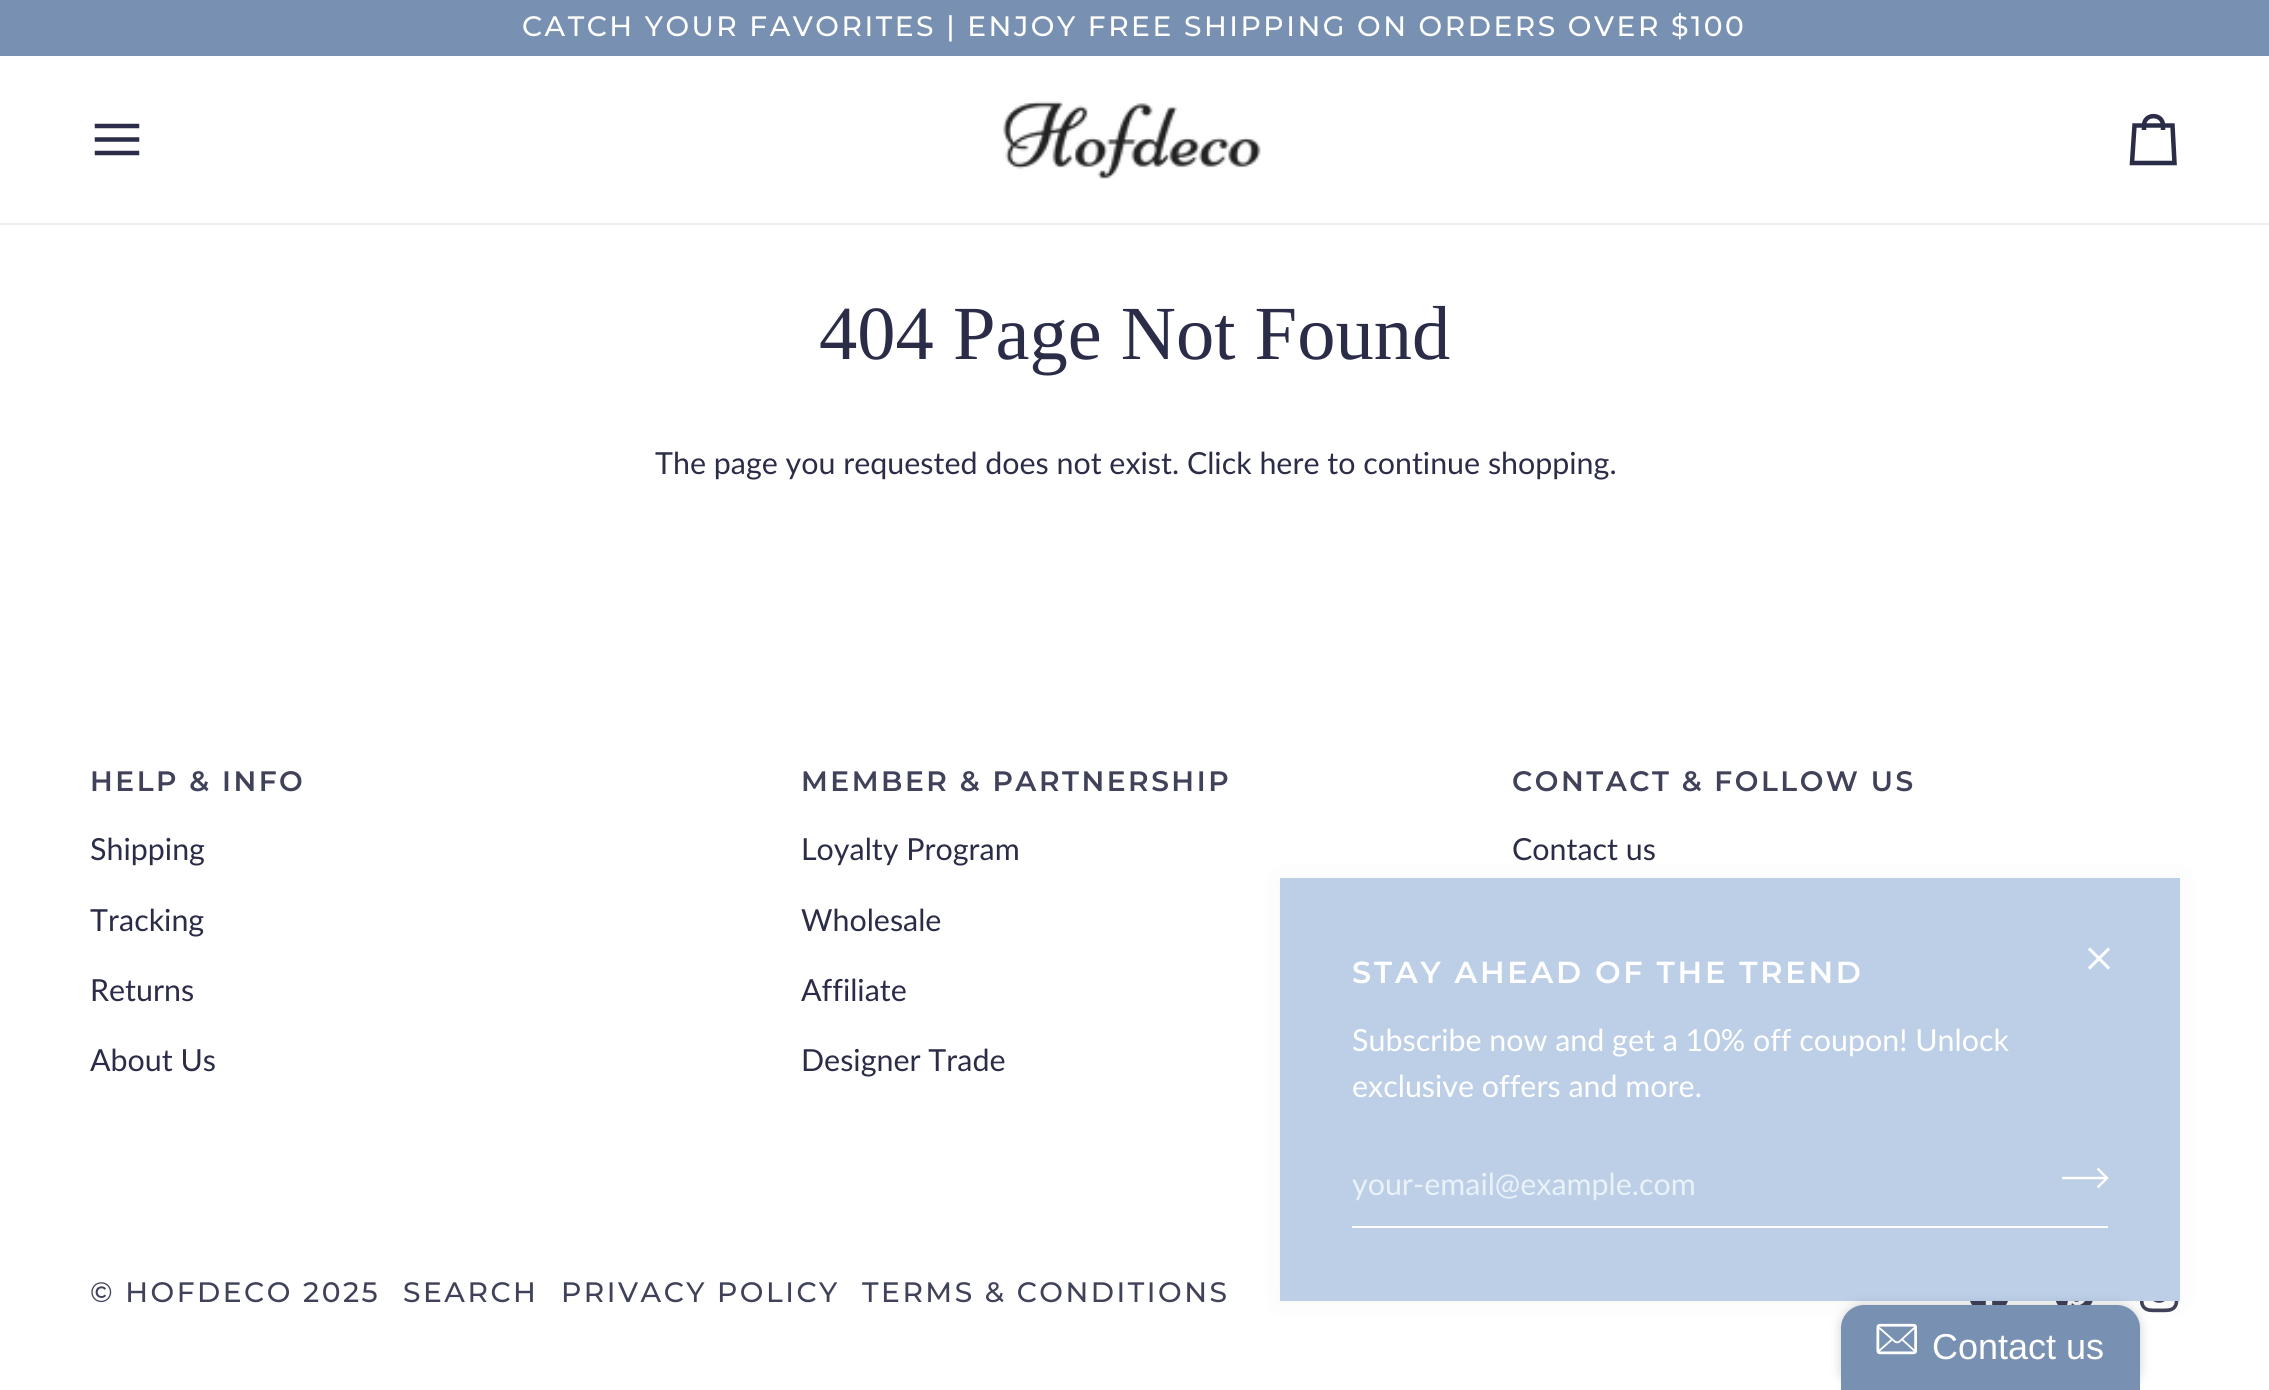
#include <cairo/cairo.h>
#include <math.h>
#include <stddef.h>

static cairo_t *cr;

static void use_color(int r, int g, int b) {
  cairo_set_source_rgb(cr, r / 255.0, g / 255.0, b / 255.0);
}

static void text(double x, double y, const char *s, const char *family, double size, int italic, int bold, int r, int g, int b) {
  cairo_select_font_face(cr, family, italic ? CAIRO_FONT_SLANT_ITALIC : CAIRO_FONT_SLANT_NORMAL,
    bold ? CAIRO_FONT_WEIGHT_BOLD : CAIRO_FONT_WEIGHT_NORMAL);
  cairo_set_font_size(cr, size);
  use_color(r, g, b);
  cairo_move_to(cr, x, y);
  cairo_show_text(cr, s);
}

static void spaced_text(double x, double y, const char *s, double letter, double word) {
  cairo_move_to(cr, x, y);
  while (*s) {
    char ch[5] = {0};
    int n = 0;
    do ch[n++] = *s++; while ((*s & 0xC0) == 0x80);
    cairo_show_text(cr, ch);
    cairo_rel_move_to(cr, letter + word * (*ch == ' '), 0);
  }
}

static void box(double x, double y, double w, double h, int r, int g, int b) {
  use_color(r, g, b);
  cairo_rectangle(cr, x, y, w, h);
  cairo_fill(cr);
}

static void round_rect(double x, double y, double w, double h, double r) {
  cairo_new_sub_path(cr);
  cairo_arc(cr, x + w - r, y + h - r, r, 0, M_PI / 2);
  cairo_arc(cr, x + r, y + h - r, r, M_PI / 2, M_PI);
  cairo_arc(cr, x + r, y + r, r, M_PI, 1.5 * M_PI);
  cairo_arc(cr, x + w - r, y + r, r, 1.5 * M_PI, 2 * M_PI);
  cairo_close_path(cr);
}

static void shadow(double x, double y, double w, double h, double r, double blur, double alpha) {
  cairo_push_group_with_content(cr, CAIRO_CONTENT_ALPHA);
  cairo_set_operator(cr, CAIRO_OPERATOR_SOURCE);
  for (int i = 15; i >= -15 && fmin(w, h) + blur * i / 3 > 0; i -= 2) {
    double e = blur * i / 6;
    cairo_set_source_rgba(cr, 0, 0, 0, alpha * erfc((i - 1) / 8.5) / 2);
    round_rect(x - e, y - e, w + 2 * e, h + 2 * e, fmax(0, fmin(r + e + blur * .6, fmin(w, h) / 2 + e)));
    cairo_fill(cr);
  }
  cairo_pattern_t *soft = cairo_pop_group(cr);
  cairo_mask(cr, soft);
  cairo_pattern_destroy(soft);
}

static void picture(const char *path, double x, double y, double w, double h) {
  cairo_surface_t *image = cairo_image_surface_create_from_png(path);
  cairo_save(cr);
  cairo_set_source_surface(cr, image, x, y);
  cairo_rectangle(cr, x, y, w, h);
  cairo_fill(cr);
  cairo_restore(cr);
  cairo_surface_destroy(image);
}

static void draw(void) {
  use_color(255, 255, 255);
  cairo_paint(cr);
  box(0, 0, 2269, 56, 120, 144, 177);
  box(0, 223, 2269, 2, 239, 239, 239);
  cairo_new_path(cr);
  cairo_move_to(cr, 137, 126);
  cairo_line_to(cr, 97, 126);
  cairo_move_to(cr, 137, 139.5);
  cairo_line_to(cr, 97, 139.5);
  cairo_move_to(cr, 137, 153);
  cairo_line_to(cr, 97, 153);
  use_color(43, 45, 72);
  cairo_set_line_width(cr, 4.5);
  cairo_set_line_cap(cr, CAIRO_LINE_CAP_SQUARE);
  cairo_stroke(cr);
  picture("img_01.png", 1003, 101, 258, 78);
  cairo_new_path(cr);
  cairo_move_to(cr, 2163, 130);
  cairo_line_to(cr, 2163, 125.5);
  cairo_line_to(cr, 2172.5, 125.5);
  cairo_line_to(cr, 2174.5, 163);
  cairo_line_to(cr, 2132, 163);
  cairo_line_to(cr, 2134.5, 125.5);
  cairo_line_to(cr, 2144, 125.5);
  cairo_curve_to(cr, 2144, 113, 2163, 113, 2163, 125.5);
  cairo_line_to(cr, 2144, 125.5);
  cairo_line_to(cr, 2144, 130);
  cairo_set_line_cap(cr, CAIRO_LINE_CAP_BUTT);
  cairo_stroke(cr);
  picture("img_02.png", 1970, 1301, 38, 4);
  picture("img_03.png", 2055, 1301, 38, 4);
  picture("img_04.png", 2140, 1301, 39, 12);
  use_color(43, 45, 72);
  shadow(1280, 878, 900, 423, 0, 11, 0.05);
  box(1280, 878, 900, 423, 188, 207, 231);
  cairo_new_path(cr);
  cairo_move_to(cr, 2108, 949.5);
  cairo_line_to(cr, 2090, 967.5);
  cairo_move_to(cr, 2090, 949.5);
  cairo_line_to(cr, 2108, 967.5);
  use_color(255, 255, 255);
  cairo_set_line_width(cr, 3);
  cairo_set_line_cap(cr, CAIRO_LINE_CAP_SQUARE);
  cairo_stroke(cr);
  box(1352, 1226, 756, 2, 255, 255, 255);
  cairo_new_path(cr);
  cairo_move_to(cr, 2097.5, 1168.5);
  cairo_line_to(cr, 2107, 1178);
  cairo_line_to(cr, 2097.5, 1187.5);
  cairo_move_to(cr, 2062, 1178);
  cairo_line_to(cr, 2107, 1178);
  cairo_set_line_width(cr, 2.4);
  cairo_set_line_cap(cr, CAIRO_LINE_CAP_BUTT);
  cairo_stroke(cr);
  use_color(0, 0, 0);
  shadow(1841, 1305, 299, 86, 23, 5.5, 0.2);
  use_color(120, 144, 177);
  cairo_new_path(cr);
  cairo_move_to(cr, 1864, 1305);
  cairo_line_to(cr, 2117, 1305);
  cairo_curve_to(cr, 2129.5, 1305, 2140, 1315.5, 2140, 1328);
  cairo_line_to(cr, 2140, 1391);
  cairo_line_to(cr, 1841, 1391);
  cairo_line_to(cr, 1841, 1328);
  cairo_curve_to(cr, 1841, 1315.5, 1851.5, 1305, 1864, 1305);
  cairo_close_path(cr);
  cairo_fill(cr);
  picture("img_05.png", 1876, 1323, 41, 32);
  cairo_select_font_face(cr, "Montserrat Medium", CAIRO_FONT_SLANT_NORMAL, CAIRO_FONT_WEIGHT_NORMAL);
  cairo_set_font_size(cr, 28.1);
  use_color(255, 255, 255);
  spaced_text(522, 36, "CATCH YOUR FAVORITES | ENJOY FREE SHIPPING ON ORDERS OVER $100", 2.53, 0);
  text(819, 359, "404 Page Not Found", "Liberation Serif", 76.5, 0, 0, 43, 45, 72);
  text(655, 474, "The page you requested does not exist. Click here to continue shopping.", "Lato", 30.4, 0, 0, 43, 45, 72);
  cairo_select_font_face(cr, "Montserrat SemiBold", CAIRO_FONT_SLANT_NORMAL, CAIRO_FONT_WEIGHT_NORMAL);
  cairo_set_font_size(cr, 28.1);
  use_color(64, 66, 90);
  spaced_text(90, 791, "HELP & INFO", 2.53, 0);
  text(90, 860, "Shipping", "Lato", 30.4, 0, 0, 43, 45, 72);
  text(90, 931, "Tracking", "Lato", 30.4, 0, 0, 43, 45, 72);
  text(90, 1001, "Returns", "Lato", 30.4, 0, 0, 43, 45, 72);
  text(90, 1071, "About Us", "Lato", 30.4, 0, 0, 43, 45, 72);
  cairo_select_font_face(cr, "Montserrat SemiBold", CAIRO_FONT_SLANT_NORMAL, CAIRO_FONT_WEIGHT_NORMAL);
  cairo_set_font_size(cr, 28.1);
  use_color(64, 66, 90);
  spaced_text(801, 791, "MEMBER & PARTNERSHIP", 2.53, 0);
  text(801, 860, "Loyalty Program", "Lato", 30.4, 0, 0, 43, 45, 72);
  text(801, 931, "Wholesale", "Lato", 30.4, 0, 0, 43, 45, 72);
  text(801, 1001, "Affiliate", "Lato", 30.4, 0, 0, 43, 45, 72);
  text(801, 1071, "Designer Trade", "Lato", 30.4, 0, 0, 43, 45, 72);
  cairo_select_font_face(cr, "Montserrat SemiBold", CAIRO_FONT_SLANT_NORMAL, CAIRO_FONT_WEIGHT_NORMAL);
  cairo_set_font_size(cr, 28.1);
  use_color(64, 66, 90);
  spaced_text(1512, 791, "CONTACT & FOLLOW US", 2.53, 0);
  text(1512, 860, "Contact us", "Lato", 30.4, 0, 0, 43, 45, 72);
  cairo_select_font_face(cr, "Montserrat SemiBold", CAIRO_FONT_SLANT_NORMAL, CAIRO_FONT_WEIGHT_NORMAL);
  use_color(255, 255, 255);
  spaced_text(1352, 983, "STAY AHEAD OF THE TREND", 2.75, 0);
  text(1352, 1051, "Subscribe now and get a 10% off coupon! Unlock", "Lato", 30.4, 0, 0, 255, 255, 255);
  text(1352, 1097, "exclusive offers and more.", "Lato", 30.4, 0, 0, 255, 255, 255);
  text(1352, 1195, "your-email@example.com", "Lato", 30.4, 0, 0, 235, 241, 248);
  cairo_select_font_face(cr, "Montserrat Medium", CAIRO_FONT_SLANT_NORMAL, CAIRO_FONT_WEIGHT_NORMAL);
  cairo_set_font_size(cr, 28.1);
  use_color(64, 66, 90);
  spaced_text(90, 1302, "© HOFDECO", 2.53, 0);
  spaced_text(303, 1302, "2025", 2.53, 0);
  spaced_text(403, 1302, "SEARCH", 2.53, 0);
  spaced_text(561, 1302, "PRIVACY POLICY", 2.53, 0);
  spaced_text(862, 1302, "TERMS & CONDITIONS", 2.53, 0);
  text(1932, 1359, "Contact us", "Liberation Sans", 36, 0, 0, 255, 255, 255);
}

int main(void) {
  cairo_surface_t *surface = cairo_image_surface_create(CAIRO_FORMAT_RGB24, 2269, 1390);
  cr = cairo_create(surface);
  cairo_font_options_t *options = cairo_font_options_create();
  cairo_font_options_set_hint_metrics(options, CAIRO_HINT_METRICS_OFF);
  cairo_font_options_set_hint_style(options, CAIRO_HINT_STYLE_NONE);
  cairo_set_font_options(cr, options);
  cairo_set_miter_limit(cr, 4);
  draw();
  cairo_surface_write_to_png(surface, "out.png");
  cairo_font_options_destroy(options);
  cairo_destroy(cr);
  cairo_surface_destroy(surface);
  return 0;
}
